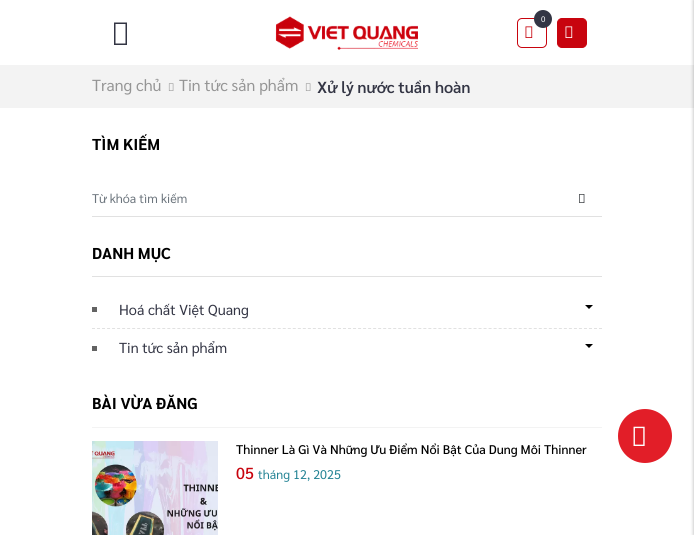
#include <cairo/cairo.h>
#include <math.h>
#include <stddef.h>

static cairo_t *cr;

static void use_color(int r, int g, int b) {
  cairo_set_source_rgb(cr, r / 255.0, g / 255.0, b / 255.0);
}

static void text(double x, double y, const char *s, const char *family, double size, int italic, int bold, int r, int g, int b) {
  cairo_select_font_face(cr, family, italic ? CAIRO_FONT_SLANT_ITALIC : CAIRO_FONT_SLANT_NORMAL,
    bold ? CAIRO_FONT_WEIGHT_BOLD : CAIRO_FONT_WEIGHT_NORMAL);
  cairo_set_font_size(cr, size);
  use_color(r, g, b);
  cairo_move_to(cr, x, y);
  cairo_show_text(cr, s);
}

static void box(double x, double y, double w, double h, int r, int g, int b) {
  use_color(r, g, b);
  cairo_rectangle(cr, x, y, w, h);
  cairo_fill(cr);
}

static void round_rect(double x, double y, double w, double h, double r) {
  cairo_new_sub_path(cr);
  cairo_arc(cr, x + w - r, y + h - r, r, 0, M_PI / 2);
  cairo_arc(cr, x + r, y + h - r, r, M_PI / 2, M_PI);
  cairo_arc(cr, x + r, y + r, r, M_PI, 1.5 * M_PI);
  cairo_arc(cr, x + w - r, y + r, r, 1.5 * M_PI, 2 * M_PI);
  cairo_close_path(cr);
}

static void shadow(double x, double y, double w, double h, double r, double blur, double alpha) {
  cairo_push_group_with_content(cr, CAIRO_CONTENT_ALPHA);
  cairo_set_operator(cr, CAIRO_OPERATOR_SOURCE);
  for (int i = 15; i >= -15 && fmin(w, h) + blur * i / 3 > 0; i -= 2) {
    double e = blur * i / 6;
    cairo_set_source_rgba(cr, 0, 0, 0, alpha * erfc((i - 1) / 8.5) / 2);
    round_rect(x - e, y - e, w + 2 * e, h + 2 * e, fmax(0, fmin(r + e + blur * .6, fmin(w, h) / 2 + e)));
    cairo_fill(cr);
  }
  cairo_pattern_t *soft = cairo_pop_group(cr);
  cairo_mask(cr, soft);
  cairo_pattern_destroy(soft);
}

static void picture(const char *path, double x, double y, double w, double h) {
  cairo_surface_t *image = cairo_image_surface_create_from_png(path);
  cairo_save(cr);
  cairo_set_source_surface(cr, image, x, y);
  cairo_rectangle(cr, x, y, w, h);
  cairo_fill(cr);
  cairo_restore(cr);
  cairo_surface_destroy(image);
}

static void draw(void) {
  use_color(255, 255, 255);
  cairo_paint(cr);
  picture("img_01.png", 275, 16, 143, 34);
  round_rect(517.5, 18.5, 29, 29, 4.5);
  use_color(200, 4, 14);
  cairo_set_line_width(cr, 1);
  cairo_stroke(cr);
  use_color(51, 53, 68);
  cairo_arc(cr, 543, 19, 9, 0, 2 * M_PI);
  cairo_fill(cr);
  picture("img_02.png", 525, 26, 8, 12);
  use_color(200, 4, 14);
  round_rect(557.5, 18.5, 29, 29, 4.5);
  cairo_fill_preserve(cr);
  cairo_stroke(cr);
  picture("img_03.png", 565, 26, 8, 12);
  use_color(51, 53, 68);
  cairo_new_path(cr);
  cairo_move_to(cr, 114, 45);
  cairo_line_to(cr, 114, 22.5);
  cairo_line_to(cr, 127, 22.5);
  cairo_line_to(cr, 127, 45);
  cairo_close_path(cr);
  cairo_move_to(cr, 115.5, 43.5);
  cairo_line_to(cr, 125.5, 43.5);
  cairo_line_to(cr, 125.5, 24);
  cairo_line_to(cr, 115.5, 24);
  cairo_close_path(cr);
  cairo_fill(cr);
  box(0, 65, 694, 43, 243, 243, 243);
  use_color(0, 0, 0);
  shadow(693, 0, 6, 535, 0, 1.5, 0.2);
  picture("img_04.png", 168, 83, 6, 8);
  picture("img_04.png", 305, 83, 6, 8);
  box(92, 216, 510, 1, 225, 225, 225);
  picture("img_05.png", 579, 194, 6, 9);
  box(92, 276, 510, 1, 225, 225, 225);
  cairo_new_path(cr);
  cairo_move_to(cr, 92, 328.5);
  cairo_line_to(cr, 602, 328.5);
  cairo_set_dash(cr, (double[]){3, 2.02}, 2, 0);
  cairo_stroke(cr);
  box(92, 307, 5, 5, 99, 99, 99);
  use_color(0, 0, 0);
  cairo_new_path(cr);
  cairo_move_to(cr, 585, 305);
  cairo_line_to(cr, 593, 305);
  cairo_line_to(cr, 589, 309);
  cairo_close_path(cr);
  cairo_move_to(cr, 585, 344);
  cairo_line_to(cr, 593, 344);
  cairo_line_to(cr, 589, 348);
  cairo_close_path(cr);
  cairo_fill(cr);
  box(92, 346, 5, 5, 99, 99, 99);
  box(92, 427, 510, 1, 243, 243, 243);
  picture("img_06.png", 92, 441, 126, 94);
  use_color(226, 30, 40);
  cairo_arc(cr, 645, 436, 27, 0, 2 * M_PI);
  cairo_fill(cr);
  picture("img_07.png", 633, 426, 12, 20);
  text(541, 22, "0", "Sarabun", 8, 0, 0, 255, 255, 255);
  text(92, 91, "Trang chủ", "Sarabun", 16, 0, 0, 149, 149, 149);
  text(179, 91, "Tin tức sản phẩm", "Sarabun", 16, 0, 0, 149, 149, 149);
  text(317, 93, "Xử lý nước tuần hoàn", "Sarabun SemiBold", 16, 0, 0, 51, 53, 68);
  text(92, 150, "TÌM KIẾM", "Sarabun", 15.75, 0, 1, 0, 0, 0);
  text(92, 203, "Từ khóa tìm kiếm", "Sarabun", 12.6, 0, 0, 108, 117, 125);
  text(92, 259, "DANH MỤC", "Sarabun", 15.75, 0, 1, 0, 0, 0);
  text(119, 315, "Hoá chất Việt Quang", "Sarabun", 14.5, 0, 0, 51, 53, 68);
  text(119, 353, "Tin tức sản phẩm", "Sarabun", 14.5, 0, 0, 51, 53, 68);
  text(92, 409, "BÀI VỪA ĐĂNG", "Sarabun", 15.75, 0, 1, 0, 0, 0);
  text(236, 454, "Thinner Là Gì Và Những Ưu Điểm Nổi Bật Của Dung Môi Thinner", "Sarabun Medium", 12.6, 0, 0, 0, 0, 0);
  text(236, 479, "05", "Sarabun Medium", 16, 0, 0, 200, 4, 14);
  text(258, 479, "tháng 12, 2025", "Sarabun", 12.6, 0, 0, 37, 132, 149);
}

int main(void) {
  cairo_surface_t *surface = cairo_image_surface_create(CAIRO_FORMAT_RGB24, 694, 535);
  cr = cairo_create(surface);
  cairo_font_options_t *options = cairo_font_options_create();
  cairo_font_options_set_hint_metrics(options, CAIRO_HINT_METRICS_OFF);
  cairo_font_options_set_hint_style(options, CAIRO_HINT_STYLE_NONE);
  cairo_set_font_options(cr, options);
  cairo_set_miter_limit(cr, 4);
  draw();
  cairo_surface_write_to_png(surface, "out.png");
  cairo_font_options_destroy(options);
  cairo_destroy(cr);
  cairo_surface_destroy(surface);
  return 0;
}
